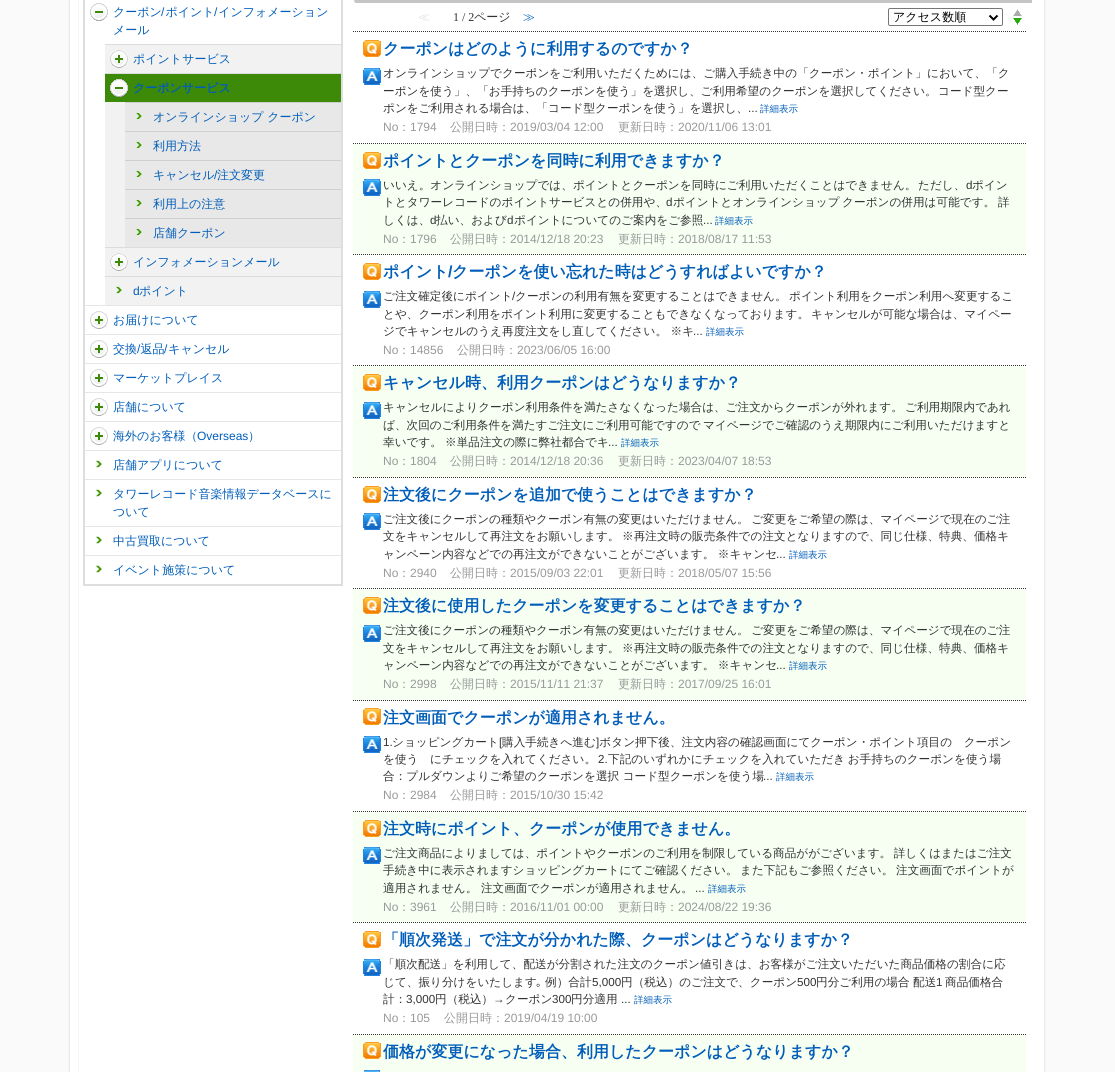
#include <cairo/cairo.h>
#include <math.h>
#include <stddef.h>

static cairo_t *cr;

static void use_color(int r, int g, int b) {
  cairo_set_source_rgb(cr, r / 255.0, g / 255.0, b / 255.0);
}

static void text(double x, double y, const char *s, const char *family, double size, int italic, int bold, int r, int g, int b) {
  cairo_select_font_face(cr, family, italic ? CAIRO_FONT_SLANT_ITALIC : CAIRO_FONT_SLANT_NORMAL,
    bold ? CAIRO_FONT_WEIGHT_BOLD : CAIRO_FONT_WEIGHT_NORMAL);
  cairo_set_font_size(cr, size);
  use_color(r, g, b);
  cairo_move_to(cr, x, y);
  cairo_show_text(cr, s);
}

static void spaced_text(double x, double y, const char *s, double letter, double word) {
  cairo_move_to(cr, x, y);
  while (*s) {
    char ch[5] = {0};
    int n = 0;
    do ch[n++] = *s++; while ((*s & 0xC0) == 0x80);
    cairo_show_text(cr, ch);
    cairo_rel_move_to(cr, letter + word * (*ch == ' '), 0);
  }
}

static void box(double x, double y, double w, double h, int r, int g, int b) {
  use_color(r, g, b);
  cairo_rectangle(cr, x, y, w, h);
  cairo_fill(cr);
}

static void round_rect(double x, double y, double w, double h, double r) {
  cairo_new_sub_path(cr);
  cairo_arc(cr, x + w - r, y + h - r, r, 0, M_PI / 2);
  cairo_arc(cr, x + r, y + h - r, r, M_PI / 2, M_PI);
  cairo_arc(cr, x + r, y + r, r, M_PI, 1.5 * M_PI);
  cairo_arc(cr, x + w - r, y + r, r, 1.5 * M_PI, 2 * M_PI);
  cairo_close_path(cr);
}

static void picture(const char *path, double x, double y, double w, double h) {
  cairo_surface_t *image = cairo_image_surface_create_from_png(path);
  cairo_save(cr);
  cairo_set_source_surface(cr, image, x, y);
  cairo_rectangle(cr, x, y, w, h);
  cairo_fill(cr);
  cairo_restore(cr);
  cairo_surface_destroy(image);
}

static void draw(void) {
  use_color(250, 250, 250);
  cairo_paint(cr);
  box(79, 0, 965, 1072, 255, 255, 255);
  picture("img_01.png", 1044, 0, 4, 1072);
  picture("img_02.png", 68, 0, 11, 1072);
  box(83, 0, 260, 586, 222, 222, 222);
  box(85, 0, 256, 584, 255, 255, 255);
  picture("img_03.png", 90, 3, 18, 18);
  box(105, 45, 236, 260, 242, 242, 242);
  box(105, 44, 236, 1, 220, 220, 220);
  picture("img_04.png", 110, 50, 18, 18);
  box(105, 73, 236, 1, 220, 220, 220);
  box(105, 74, 236, 28, 61, 137, 8);
  picture("img_05.png", 110, 79, 18, 18);
  box(125, 103, 216, 144, 232, 232, 232);
  box(125, 102, 216, 1, 207, 207, 207);
  picture("img_06.png", 136, 112, 6, 8);
  box(125, 131, 216, 1, 207, 207, 207);
  picture("img_06.png", 136, 141, 6, 8);
  box(125, 160, 216, 1, 207, 207, 207);
  picture("img_06.png", 136, 170, 6, 8);
  box(125, 189, 216, 1, 207, 207, 207);
  picture("img_06.png", 136, 199, 6, 8);
  box(125, 218, 216, 1, 207, 207, 207);
  picture("img_06.png", 136, 228, 6, 8);
  box(105, 247, 236, 1, 220, 220, 220);
  picture("img_04.png", 110, 253, 18, 18);
  box(105, 276, 236, 1, 220, 220, 220);
  picture("img_07.png", 116, 286, 6, 8);
  box(85, 305, 256, 1, 230, 230, 230);
  picture("img_08.png", 90, 311, 18, 18);
  box(85, 334, 256, 1, 230, 230, 230);
  picture("img_08.png", 90, 340, 18, 18);
  box(85, 363, 256, 1, 230, 230, 230);
  picture("img_08.png", 90, 369, 18, 18);
  box(85, 392, 256, 1, 230, 230, 230);
  picture("img_08.png", 90, 398, 18, 18);
  box(85, 421, 256, 1, 230, 230, 230);
  picture("img_08.png", 90, 427, 18, 18);
  box(85, 450, 256, 1, 230, 230, 230);
  picture("img_09.png", 96, 460, 6, 8);
  box(85, 479, 256, 1, 230, 230, 230);
  picture("img_09.png", 96, 489, 6, 8);
  box(85, 526, 256, 1, 230, 230, 230);
  picture("img_09.png", 96, 536, 6, 8);
  box(85, 555, 256, 1, 230, 230, 230);
  picture("img_09.png", 96, 565, 6, 8);
  picture("img_10.png", 353, 0, 2, 3);
  box(355, 0, 677, 3, 196, 197, 198);
  round_rect(888.5, 8.5, 114, 17, 1.5);
  use_color(118, 118, 118);
  cairo_set_line_width(cr, 1);
  cairo_stroke(cr);
  cairo_new_path(cr);
  cairo_move_to(cr, 989.5, 15.5);
  cairo_line_to(cr, 993.5, 19.5);
  cairo_line_to(cr, 997.5, 15.5);
  use_color(0, 0, 0);
  cairo_set_line_width(cr, 2);
  cairo_stroke(cr);
  picture("img_11.png", 1013, 9, 9, 7);
  picture("img_12.png", 1013, 18, 9, 7);
  cairo_new_path(cr);
  cairo_move_to(cr, 353, 31.5);
  cairo_line_to(cr, 1026, 31.5);
  use_color(51, 51, 51);
  cairo_set_line_width(cr, 1);
  cairo_set_dash(cr, (double[]){1, 1}, 2, 0);
  cairo_stroke(cr);
  cairo_new_path(cr);
  cairo_move_to(cr, 353, 143.5);
  cairo_line_to(cr, 1026, 143.5);
  cairo_stroke(cr);
  picture("img_13.png", 363, 40, 18, 17);
  picture("img_14.png", 363, 68, 18, 17);
  box(353, 144, 673, 111, 246, 255, 242);
  cairo_new_path(cr);
  cairo_move_to(cr, 353, 254.5);
  cairo_line_to(cr, 1026, 254.5);
  use_color(51, 51, 51);
  cairo_stroke(cr);
  picture("img_15.png", 363, 152, 18, 17);
  picture("img_16.png", 363, 179, 18, 17);
  cairo_new_path(cr);
  cairo_move_to(cr, 353, 365.5);
  cairo_line_to(cr, 1026, 365.5);
  cairo_stroke(cr);
  picture("img_13.png", 363, 263, 18, 17);
  picture("img_14.png", 363, 291, 18, 17);
  box(353, 366, 673, 112, 246, 255, 242);
  cairo_new_path(cr);
  cairo_move_to(cr, 353, 477.5);
  cairo_line_to(cr, 1026, 477.5);
  use_color(51, 51, 51);
  cairo_stroke(cr);
  picture("img_15.png", 363, 374, 18, 17);
  picture("img_16.png", 363, 402, 18, 17);
  cairo_new_path(cr);
  cairo_move_to(cr, 353, 588.5);
  cairo_line_to(cr, 1026, 588.5);
  cairo_stroke(cr);
  picture("img_13.png", 363, 486, 18, 17);
  picture("img_14.png", 363, 513, 18, 17);
  box(353, 589, 673, 112, 246, 255, 242);
  cairo_new_path(cr);
  cairo_move_to(cr, 353, 700.5);
  cairo_line_to(cr, 1026, 700.5);
  use_color(51, 51, 51);
  cairo_stroke(cr);
  picture("img_15.png", 363, 597, 18, 17);
  picture("img_16.png", 363, 625, 18, 17);
  cairo_new_path(cr);
  cairo_move_to(cr, 353, 811.5);
  cairo_line_to(cr, 1026, 811.5);
  cairo_stroke(cr);
  picture("img_13.png", 363, 708, 18, 17);
  picture("img_14.png", 363, 736, 18, 17);
  box(353, 812, 673, 111, 246, 255, 242);
  cairo_new_path(cr);
  cairo_move_to(cr, 353, 922.5);
  cairo_line_to(cr, 1026, 922.5);
  use_color(51, 51, 51);
  cairo_stroke(cr);
  picture("img_15.png", 363, 820, 18, 17);
  picture("img_16.png", 363, 847, 18, 17);
  cairo_new_path(cr);
  cairo_move_to(cr, 353, 1034.5);
  cairo_line_to(cr, 1026, 1034.5);
  cairo_stroke(cr);
  picture("img_13.png", 363, 931, 18, 17);
  picture("img_14.png", 363, 959, 18, 17);
  box(353, 1035, 673, 37, 246, 255, 242);
  picture("img_15.png", 363, 1042, 18, 17);
  picture("img_17.png", 364, 1070, 16, 2);
  text(113, 16, "クーポン ポイント インフォメーション", "WenQuanYi Zen Hei Medium", 12, 0, 0, 0, 93, 185);
  text(161, 16, "/", "Liberation Sans", 12, 0, 0, 0, 93, 185);
  text(214, 16, "/", "Liberation Sans", 12, 0, 0, 0, 93, 185);
  text(113, 34, "メール", "WenQuanYi Zen Hei Medium", 12, 0, 0, 0, 93, 185);
  text(133, 63, "ポイントサービス", "WenQuanYi Zen Hei Medium", 12, 0, 0, 0, 93, 185);
  text(133, 92, "クーポンサービス", "WenQuanYi Zen Hei", 12, 0, 1, 0, 93, 185);
  text(153, 121, "オンラインショップ クーポン", "WenQuanYi Zen Hei Medium", 12, 0, 0, 0, 93, 185);
  text(153, 150, "利用方法", "WenQuanYi Zen Hei Medium", 12, 0, 0, 0, 93, 185);
  text(153, 179, "キャンセル", "WenQuanYi Zen Hei Medium", 12, 0, 0, 0, 93, 185);
  text(214, 179, "/", "Liberation Sans", 12, 0, 0, 0, 93, 185);
  text(217, 179, "注文変更", "WenQuanYi Zen Hei Medium", 12, 0, 0, 0, 93, 185);
  text(153, 208, "利用上の注意", "WenQuanYi Zen Hei Medium", 12, 0, 0, 0, 93, 185);
  text(153, 237, "店舗クーポン", "WenQuanYi Zen Hei Medium", 12, 0, 0, 0, 93, 185);
  text(133, 266, "インフォメーションメール", "WenQuanYi Zen Hei Medium", 12, 0, 0, 0, 93, 185);
  text(133, 295, "d", "Liberation Sans", 12, 0, 0, 0, 93, 185);
  text(139, 295, "ポイント", "WenQuanYi Zen Hei Medium", 12, 0, 0, 0, 93, 185);
  text(113, 324, "お届けについて", "WenQuanYi Zen Hei Medium", 12, 0, 0, 0, 93, 185);
  text(113, 353, "交換 返品 キャンセル", "WenQuanYi Zen Hei Medium", 12, 0, 0, 0, 93, 185);
  text(137, 353, "/", "Liberation Sans", 12, 0, 0, 0, 93, 185);
  text(164, 353, "/", "Liberation Sans", 12, 0, 0, 0, 93, 185);
  text(113, 382, "マーケットプレイス", "WenQuanYi Zen Hei Medium", 12, 0, 0, 0, 93, 185);
  text(113, 411, "店舗について", "WenQuanYi Zen Hei Medium", 12, 0, 0, 0, 93, 185);
  text(113, 440, "海外のお客様（", "WenQuanYi Zen Hei Medium", 12, 0, 0, 0, 93, 185);
  text(197, 440, "Overseas", "Liberation Sans", 12, 0, 0, 0, 93, 185);
  text(248, 440, "）", "WenQuanYi Zen Hei Medium", 12, 0, 0, 0, 93, 185);
  text(113, 469, "店舗アプリについて", "WenQuanYi Zen Hei Medium", 12, 0, 0, 0, 93, 185);
  text(113, 498, "タワーレコード音楽情報データベースに", "WenQuanYi Zen Hei Medium", 12, 0, 0, 0, 93, 185);
  text(113, 516, "ついて", "WenQuanYi Zen Hei Medium", 12, 0, 0, 0, 93, 185);
  text(113, 545, "中古買取について", "WenQuanYi Zen Hei Medium", 12, 0, 0, 0, 93, 185);
  text(113, 574, "イベント施策について", "WenQuanYi Zen Hei Medium", 12, 0, 0, 0, 93, 185);
  text(418, 21, "≪", "WenQuanYi Zen Hei Medium", 12, 0, 0, 221, 221, 221);
  text(453, 21, "1 / 2", "Liberation Serif", 12, 0, 0, 51, 51, 51);
  text(474, 21, "ページ", "WenQuanYi Zen Hei Medium", 12, 0, 0, 51, 51, 51);
  text(523, 21, "≫", "WenQuanYi Zen Hei Medium", 12, 0, 0, 0, 93, 185);
  text(893, 21, "アクセス数順", "WenQuanYi Zen Hei Medium", 12, 0, 0, 0, 0, 0);
  text(383, 54, "クーポンはどのように利用するのですか？", "WenQuanYi Zen Hei", 16, 0, 1, 0, 93, 185);
  text(383, 77, "オンラインショップでクーポンをご利用いただくためには、ご購入手続き中の「クーポン・ポイント」において、「ク", "WenQuanYi Zen Hei Medium", 11.63, 0, 0, 51, 51, 51);
  text(383, 95, "ーポンを使う」、「お手持ちのクーポンを使う」を選択し、ご利用希望のクーポンを選択してください。", "WenQuanYi Zen Hei Medium", 11.63, 0, 0, 51, 51, 51);
  text(938, 95, "コード型クー", "WenQuanYi Zen Hei Medium", 11.63, 0, 0, 51, 51, 51);
  text(383, 112, "ポンをご利用される場合は、「コード型クーポンを使う」を選択し、", "WenQuanYi Zen Hei Medium", 11.63, 0, 0, 51, 51, 51);
  text(748, 112, "...", "Liberation Sans", 11.63, 0, 0, 51, 51, 51);
  text(760, 112, "詳細表示", "WenQuanYi Zen Hei Medium", 9.5, 0, 0, 0, 93, 185);
  text(383, 131, "No", "Liberation Sans", 12, 0, 0, 153, 153, 153);
  text(398, 131, "：", "WenQuanYi Zen Hei Medium", 12, 0, 0, 153, 153, 153);
  text(410, 131, "1794", "Liberation Sans", 12, 0, 0, 153, 153, 153);
  text(450, 131, "公開日時：", "WenQuanYi Zen Hei Medium", 12, 0, 0, 153, 153, 153);
  text(510, 131, "2019/03/04 12:00", "Liberation Sans", 12, 0, 0, 153, 153, 153);
  text(618, 131, "更新日時：", "WenQuanYi Zen Hei Medium", 12, 0, 0, 153, 153, 153);
  text(678, 131, "2020/11/06 13:01", "Liberation Sans", 12, 0, 0, 153, 153, 153);
  text(383, 166, "ポイントとクーポンを同時に利用できますか？", "WenQuanYi Zen Hei", 16, 0, 1, 0, 93, 185);
  text(383, 189, "いいえ。オンラインショップでは、ポイントとクーポンを同時にご利用いただくことはできません。", "WenQuanYi Zen Hei Medium", 11.63, 0, 0, 51, 51, 51);
  text(918, 189, "ただし、", "WenQuanYi Zen Hei Medium", 11.63, 0, 0, 51, 51, 51);
  text(966, 189, "d", "Liberation Sans", 11.63, 0, 0, 51, 51, 51);
  text(972, 189, "ポイン", "WenQuanYi Zen Hei Medium", 11.63, 0, 0, 51, 51, 51);
  text(383, 206, "トとタワーレコードのポイントサービスとの併用や、", "WenQuanYi Zen Hei Medium", 11.63, 0, 0, 51, 51, 51);
  text(666, 206, "d", "Liberation Sans", 11.63, 0, 0, 51, 51, 51);
  cairo_select_font_face(cr, "WenQuanYi Zen Hei Medium", CAIRO_FONT_SLANT_NORMAL, CAIRO_FONT_WEIGHT_NORMAL);
  spaced_text(673, 206, "ポイントとオンラインショップ クーポンの併用は可能です。", 0, -1);
  text(998, 206, "詳", "WenQuanYi Zen Hei Medium", 11.63, 0, 0, 51, 51, 51);
  text(383, 224, "しくは、", "WenQuanYi Zen Hei Medium", 11.63, 0, 0, 51, 51, 51);
  text(430, 224, "d", "Liberation Sans", 11.63, 0, 0, 51, 51, 51);
  text(436, 224, "払い、および", "WenQuanYi Zen Hei Medium", 11.63, 0, 0, 51, 51, 51);
  text(507, 224, "d", "Liberation Sans", 11.63, 0, 0, 51, 51, 51);
  text(514, 224, "ポイントについてのご案内をご参照", "WenQuanYi Zen Hei Medium", 11.63, 0, 0, 51, 51, 51);
  text(703, 224, "...", "Liberation Sans", 11.63, 0, 0, 51, 51, 51);
  text(715, 224, "詳細表示", "WenQuanYi Zen Hei Medium", 9.5, 0, 0, 0, 93, 185);
  text(383, 243, "No", "Liberation Sans", 12, 0, 0, 153, 153, 153);
  text(398, 243, "：", "WenQuanYi Zen Hei Medium", 12, 0, 0, 153, 153, 153);
  text(410, 243, "1796", "Liberation Sans", 12, 0, 0, 153, 153, 153);
  text(450, 243, "公開日時：", "WenQuanYi Zen Hei Medium", 12, 0, 0, 153, 153, 153);
  text(510, 243, "2014/12/18 20:23", "Liberation Sans", 12, 0, 0, 153, 153, 153);
  text(618, 243, "更新日時：", "WenQuanYi Zen Hei Medium", 12, 0, 0, 153, 153, 153);
  text(678, 243, "2018/08/17 11:53", "Liberation Sans", 12, 0, 0, 153, 153, 153);
  text(383, 277, "ポイント", "WenQuanYi Zen Hei", 16, 0, 1, 0, 93, 185);
  text(448, 277, "/", "Liberation Sans", 16, 0, 1, 0, 93, 185);
  text(452, 277, "クーポンを使い忘れた時はどうすればよいですか？", "WenQuanYi Zen Hei", 16, 0, 1, 0, 93, 185);
  text(383, 300, "ご注文確定後にポイント", "WenQuanYi Zen Hei Medium", 11.63, 0, 0, 51, 51, 51);
  text(512, 300, "/", "Liberation Sans", 11.63, 0, 0, 51, 51, 51);
  cairo_select_font_face(cr, "WenQuanYi Zen Hei Medium", CAIRO_FONT_SLANT_NORMAL, CAIRO_FONT_WEIGHT_NORMAL);
  spaced_text(515, 300, "クーポンの利用有無を変更することはできません。 ポイント利用をクーポン利用へ変更するこ", 0, -1);
  text(383, 318, "とや、クーポン利用をポイント利用に変更することもできなくなっております。", "WenQuanYi Zen Hei Medium", 11.63, 0, 0, 51, 51, 51);
  text(811, 318, "キャンセルが可能な場合は、マイペー", "WenQuanYi Zen Hei Medium", 11.63, 0, 0, 51, 51, 51);
  text(383, 335, "ジでキャンセルのうえ再度注文をし直してください。 ※キ", "WenQuanYi Zen Hei Medium", 11.63, 0, 0, 51, 51, 51);
  text(693, 335, "...", "Liberation Sans", 11.63, 0, 0, 51, 51, 51);
  text(706, 335, "詳細表示", "WenQuanYi Zen Hei Medium", 9.5, 0, 0, 0, 93, 185);
  text(383, 354, "No", "Liberation Sans", 12, 0, 0, 153, 153, 153);
  text(398, 354, "：", "WenQuanYi Zen Hei Medium", 12, 0, 0, 153, 153, 153);
  text(410, 354, "14856", "Liberation Sans", 12, 0, 0, 153, 153, 153);
  text(457, 354, "公開日時：", "WenQuanYi Zen Hei Medium", 12, 0, 0, 153, 153, 153);
  text(517, 354, "2023/06/05 16:00", "Liberation Sans", 12, 0, 0, 153, 153, 153);
  text(383, 388, "キャンセル時、利用クーポンはどうなりますか？", "WenQuanYi Zen Hei", 16, 0, 1, 0, 93, 185);
  text(383, 411, "キャンセルによりクーポン利用条件を満たさなくなった場合は、ご注文からクーポンが外れます。", "WenQuanYi Zen Hei Medium", 11.63, 0, 0, 51, 51, 51);
  text(905, 411, "ご利用期限内であれ", "WenQuanYi Zen Hei Medium", 11.63, 0, 0, 51, 51, 51);
  text(383, 429, "ば、次回のご利用条件を満たすご注文にご利用可能ですので", "WenQuanYi Zen Hei Medium", 11.63, 0, 0, 51, 51, 51);
  text(703, 429, "マイページでご確認のうえ期限内にご利用いただけますと", "WenQuanYi Zen Hei Medium", 11.63, 0, 0, 51, 51, 51);
  text(383, 446, "幸いです。", "WenQuanYi Zen Hei Medium", 11.63, 0, 0, 51, 51, 51);
  text(445, 446, "※単品注文の際に弊社都合でキ", "WenQuanYi Zen Hei Medium", 11.63, 0, 0, 51, 51, 51);
  text(608, 446, "...", "Liberation Sans", 11.63, 0, 0, 51, 51, 51);
  text(621, 446, "詳細表示", "WenQuanYi Zen Hei Medium", 9.5, 0, 0, 0, 93, 185);
  text(383, 465, "No", "Liberation Sans", 12, 0, 0, 153, 153, 153);
  text(398, 465, "：", "WenQuanYi Zen Hei Medium", 12, 0, 0, 153, 153, 153);
  text(410, 465, "1804", "Liberation Sans", 12, 0, 0, 153, 153, 153);
  text(450, 465, "公開日時：", "WenQuanYi Zen Hei Medium", 12, 0, 0, 153, 153, 153);
  text(510, 465, "2014/12/18 20:36", "Liberation Sans", 12, 0, 0, 153, 153, 153);
  text(618, 465, "更新日時：", "WenQuanYi Zen Hei Medium", 12, 0, 0, 153, 153, 153);
  text(678, 465, "2023/04/07 18:53", "Liberation Sans", 12, 0, 0, 153, 153, 153);
  text(383, 500, "注文後にクーポンを追加で使うことはできますか？", "WenQuanYi Zen Hei", 16, 0, 1, 0, 93, 185);
  cairo_select_font_face(cr, "WenQuanYi Zen Hei Medium", CAIRO_FONT_SLANT_NORMAL, CAIRO_FONT_WEIGHT_NORMAL);
  cairo_set_font_size(cr, 11.63);
  use_color(51, 51, 51);
  spaced_text(383, 523, "ご注文後にクーポンの種類やクーポン有無の変更はいただけません。 ご変更をご希望の際は、マイページで現在のご注", 0, -1);
  text(383, 540, "文をキャンセルして再注文をお願いします。", "WenQuanYi Zen Hei Medium", 11.63, 0, 0, 51, 51, 51);
  text(622, 540, "※再注文時の販売条件での注文となりますので、同じ仕様、特典、価格キ", "WenQuanYi Zen Hei Medium", 11.63, 0, 0, 51, 51, 51);
  text(383, 558, "ャンペーン内容などでの再注文ができないことがございます。 ※キャンセ", "WenQuanYi Zen Hei Medium", 11.63, 0, 0, 51, 51, 51);
  text(776, 558, "...", "Liberation Sans", 11.63, 0, 0, 51, 51, 51);
  text(789, 558, "詳細表示", "WenQuanYi Zen Hei Medium", 9.5, 0, 0, 0, 93, 185);
  text(383, 577, "No", "Liberation Sans", 12, 0, 0, 153, 153, 153);
  text(398, 577, "：", "WenQuanYi Zen Hei Medium", 12, 0, 0, 153, 153, 153);
  text(410, 577, "2940", "Liberation Sans", 12, 0, 0, 153, 153, 153);
  text(450, 577, "公開日時：", "WenQuanYi Zen Hei Medium", 12, 0, 0, 153, 153, 153);
  text(510, 577, "2015/09/03 22:01", "Liberation Sans", 12, 0, 0, 153, 153, 153);
  text(618, 577, "更新日時：", "WenQuanYi Zen Hei Medium", 12, 0, 0, 153, 153, 153);
  text(678, 577, "2018/05/07 15:56", "Liberation Sans", 12, 0, 0, 153, 153, 153);
  text(383, 611, "注文後に使用したクーポンを変更することはできますか？", "WenQuanYi Zen Hei", 16, 0, 1, 0, 93, 185);
  cairo_select_font_face(cr, "WenQuanYi Zen Hei Medium", CAIRO_FONT_SLANT_NORMAL, CAIRO_FONT_WEIGHT_NORMAL);
  cairo_set_font_size(cr, 11.63);
  use_color(51, 51, 51);
  spaced_text(383, 634, "ご注文後にクーポンの種類やクーポン有無の変更はいただけません。 ご変更をご希望の際は、マイページで現在のご注", 0, -1);
  text(383, 652, "文をキャンセルして再注文をお願いします。", "WenQuanYi Zen Hei Medium", 11.63, 0, 0, 51, 51, 51);
  text(622, 652, "※再注文時の販売条件での注文となりますので、同じ仕様、特典、価格キ", "WenQuanYi Zen Hei Medium", 11.63, 0, 0, 51, 51, 51);
  text(383, 669, "ャンペーン内容などでの再注文ができないことがございます。 ※キャンセ", "WenQuanYi Zen Hei Medium", 11.63, 0, 0, 51, 51, 51);
  text(776, 669, "...", "Liberation Sans", 11.63, 0, 0, 51, 51, 51);
  text(789, 669, "詳細表示", "WenQuanYi Zen Hei Medium", 9.5, 0, 0, 0, 93, 185);
  text(383, 688, "No", "Liberation Sans", 12, 0, 0, 153, 153, 153);
  text(398, 688, "：", "WenQuanYi Zen Hei Medium", 12, 0, 0, 153, 153, 153);
  text(410, 688, "2998", "Liberation Sans", 12, 0, 0, 153, 153, 153);
  text(450, 688, "公開日時：", "WenQuanYi Zen Hei Medium", 12, 0, 0, 153, 153, 153);
  text(510, 688, "2015/11/11 21:37", "Liberation Sans", 12, 0, 0, 153, 153, 153);
  text(618, 688, "更新日時：", "WenQuanYi Zen Hei Medium", 12, 0, 0, 153, 153, 153);
  text(678, 688, "2017/09/25 16:01", "Liberation Sans", 12, 0, 0, 153, 153, 153);
  text(383, 723, "注文画面でクーポンが適用されません。", "WenQuanYi Zen Hei", 16, 0, 1, 0, 93, 185);
  text(392, 746, "ショッピングカート", "WenQuanYi Zen Hei Medium", 11.63, 0, 0, 51, 51, 51);
  text(499, 746, "[", "Liberation Sans", 11.63, 0, 0, 51, 51, 51);
  text(502, 746, "購入手続きへ進む ボタン押下後、注文内容の確認画面にてクーポン・ポイント項目の　クーポン", "WenQuanYi Zen Hei Medium", 11.63, 0, 0, 51, 51, 51);
  text(383, 746, "1.", "Liberation Sans", 11.63, 0, 0, 51, 51, 51);
  text(596, 746, "]", "Liberation Sans", 11.63, 0, 0, 51, 51, 51);
  text(383, 763, "を使う　にチェックを入れてください。", "WenQuanYi Zen Hei Medium", 11.63, 0, 0, 51, 51, 51);
  text(598, 763, "2.", "Liberation Sans", 11.63, 0, 0, 51, 51, 51);
  cairo_select_font_face(cr, "WenQuanYi Zen Hei Medium", CAIRO_FONT_SLANT_NORMAL, CAIRO_FONT_WEIGHT_NORMAL);
  spaced_text(608, 763, "下記のいずれかにチェックを入れていただき お手持ちのクーポンを使う場", 0, -1);
  text(383, 780, "合：プルダウンよりご希望のクーポンを選択 コード型クーポンを使う場", "WenQuanYi Zen Hei Medium", 11.63, 0, 0, 51, 51, 51);
  text(763, 780, "...", "Liberation Sans", 11.63, 0, 0, 51, 51, 51);
  text(776, 780, "詳細表示", "WenQuanYi Zen Hei Medium", 9.5, 0, 0, 0, 93, 185);
  text(383, 799, "No", "Liberation Sans", 12, 0, 0, 153, 153, 153);
  text(398, 799, "：", "WenQuanYi Zen Hei Medium", 12, 0, 0, 153, 153, 153);
  text(410, 799, "2984", "Liberation Sans", 12, 0, 0, 153, 153, 153);
  text(450, 799, "公開日時：", "WenQuanYi Zen Hei Medium", 12, 0, 0, 153, 153, 153);
  text(510, 799, "2015/10/30 15:42", "Liberation Sans", 12, 0, 0, 153, 153, 153);
  text(383, 834, "注文時にポイント、クーポンが使用できません。", "WenQuanYi Zen Hei", 16, 0, 1, 0, 93, 185);
  cairo_select_font_face(cr, "WenQuanYi Zen Hei Medium", CAIRO_FONT_SLANT_NORMAL, CAIRO_FONT_WEIGHT_NORMAL);
  cairo_set_font_size(cr, 11.63);
  use_color(51, 51, 51);
  spaced_text(383, 857, "ご注文商品によりましては、ポイントやクーポンのご利用を制限している商品ががございます。 詳しくはまたはご注文", 0, -1);
  text(383, 874, "手続き中に表示されますショッピングカートにてご確認ください。", "WenQuanYi Zen Hei Medium", 11.63, 0, 0, 51, 51, 51);
  text(740, 874, "また下記もご参照ください。", "WenQuanYi Zen Hei Medium", 11.63, 0, 0, 51, 51, 51);
  text(896, 874, "注文画面でポイントが", "WenQuanYi Zen Hei Medium", 11.63, 0, 0, 51, 51, 51);
  text(383, 892, "適用されません。 注文画面でクーポンが適用されません。", "WenQuanYi Zen Hei Medium", 11.63, 0, 0, 51, 51, 51);
  text(695, 892, "...", "Liberation Sans", 11.63, 0, 0, 51, 51, 51);
  text(708, 892, "詳細表示", "WenQuanYi Zen Hei Medium", 9.5, 0, 0, 0, 93, 185);
  text(383, 911, "No", "Liberation Sans", 12, 0, 0, 153, 153, 153);
  text(398, 911, "：", "WenQuanYi Zen Hei Medium", 12, 0, 0, 153, 153, 153);
  text(410, 911, "3961", "Liberation Sans", 12, 0, 0, 153, 153, 153);
  text(450, 911, "公開日時：", "WenQuanYi Zen Hei Medium", 12, 0, 0, 153, 153, 153);
  text(510, 911, "2016/11/01 00:00", "Liberation Sans", 12, 0, 0, 153, 153, 153);
  text(618, 911, "更新日時：", "WenQuanYi Zen Hei Medium", 12, 0, 0, 153, 153, 153);
  text(678, 911, "2024/08/22 19:36", "Liberation Sans", 12, 0, 0, 153, 153, 153);
  text(383, 945, "「順次発送」で注文が分かれた際、クーポンはどうなりますか？", "WenQuanYi Zen Hei", 16, 0, 1, 0, 93, 185);
  text(383, 968, "「順次配送」を利用して、配送が分割された注文のクーポン値引きは、お客様がご注文いただいた商品価格の割合に応", "WenQuanYi Zen Hei Medium", 11.63, 0, 0, 51, 51, 51);
  text(383, 986, "じて、振り分けをいたします", "WenQuanYi Zen Hei Medium", 11.63, 0, 0, 51, 51, 51);
  text(536, 986, "｡", "IPAPGothic", 11.63, 0, 0, 51, 51, 51);
  text(545, 986, "例）合計", "WenQuanYi Zen Hei Medium", 11.63, 0, 0, 51, 51, 51);
  text(592, 986, "5,000", "Liberation Sans", 11.63, 0, 0, 51, 51, 51);
  text(621, 986, "円（税込）のご注文で、クーポン", "WenQuanYi Zen Hei Medium", 11.63, 0, 0, 51, 51, 51);
  text(797, 986, "500", "Liberation Sans", 11.63, 0, 0, 51, 51, 51);
  text(816, 986, "円分ご利用の場合 配送", "WenQuanYi Zen Hei Medium", 11.63, 0, 0, 51, 51, 51);
  text(936, 986, "1", "Liberation Sans", 11.63, 0, 0, 51, 51, 51);
  text(945, 986, "商品価格合", "WenQuanYi Zen Hei Medium", 11.63, 0, 0, 51, 51, 51);
  text(383, 1003, "計：", "WenQuanYi Zen Hei Medium", 11.63, 0, 0, 51, 51, 51);
  text(406, 1003, "3,000", "Liberation Sans", 11.63, 0, 0, 51, 51, 51);
  text(435, 1003, "円（税込）", "WenQuanYi Zen Hei Medium", 11.63, 0, 0, 51, 51, 51);
  text(493, 1003, "→", "Liberation Sans", 11.63, 0, 0, 51, 51, 51);
  text(505, 1003, "クーポン", "WenQuanYi Zen Hei Medium", 11.63, 0, 0, 51, 51, 51);
  text(552, 1003, "300", "Liberation Sans", 11.63, 0, 0, 51, 51, 51);
  text(571, 1003, "円分適用", "WenQuanYi Zen Hei Medium", 11.63, 0, 0, 51, 51, 51);
  text(621, 1003, "...", "Liberation Sans", 11.63, 0, 0, 51, 51, 51);
  text(634, 1003, "詳細表示", "WenQuanYi Zen Hei Medium", 9.5, 0, 0, 0, 93, 185);
  text(383, 1022, "No", "Liberation Sans", 12, 0, 0, 153, 153, 153);
  text(398, 1022, "：", "WenQuanYi Zen Hei Medium", 12, 0, 0, 153, 153, 153);
  text(410, 1022, "105", "Liberation Sans", 12, 0, 0, 153, 153, 153);
  text(444, 1022, "公開日時：", "WenQuanYi Zen Hei Medium", 12, 0, 0, 153, 153, 153);
  text(504, 1022, "2019/04/19 10:00", "Liberation Sans", 12, 0, 0, 153, 153, 153);
  text(383, 1057, "価格が変更になった場合、利用したクーポンはどうなりますか？", "WenQuanYi Zen Hei", 16, 0, 1, 0, 93, 185);
}

int main(void) {
  cairo_surface_t *surface = cairo_image_surface_create(CAIRO_FORMAT_RGB24, 1115, 1072);
  cr = cairo_create(surface);
  cairo_font_options_t *options = cairo_font_options_create();
  cairo_font_options_set_hint_metrics(options, CAIRO_HINT_METRICS_OFF);
  cairo_font_options_set_hint_style(options, CAIRO_HINT_STYLE_NONE);
  cairo_set_font_options(cr, options);
  cairo_set_miter_limit(cr, 4);
  draw();
  cairo_surface_write_to_png(surface, "out.png");
  cairo_font_options_destroy(options);
  cairo_destroy(cr);
  cairo_surface_destroy(surface);
  return 0;
}
